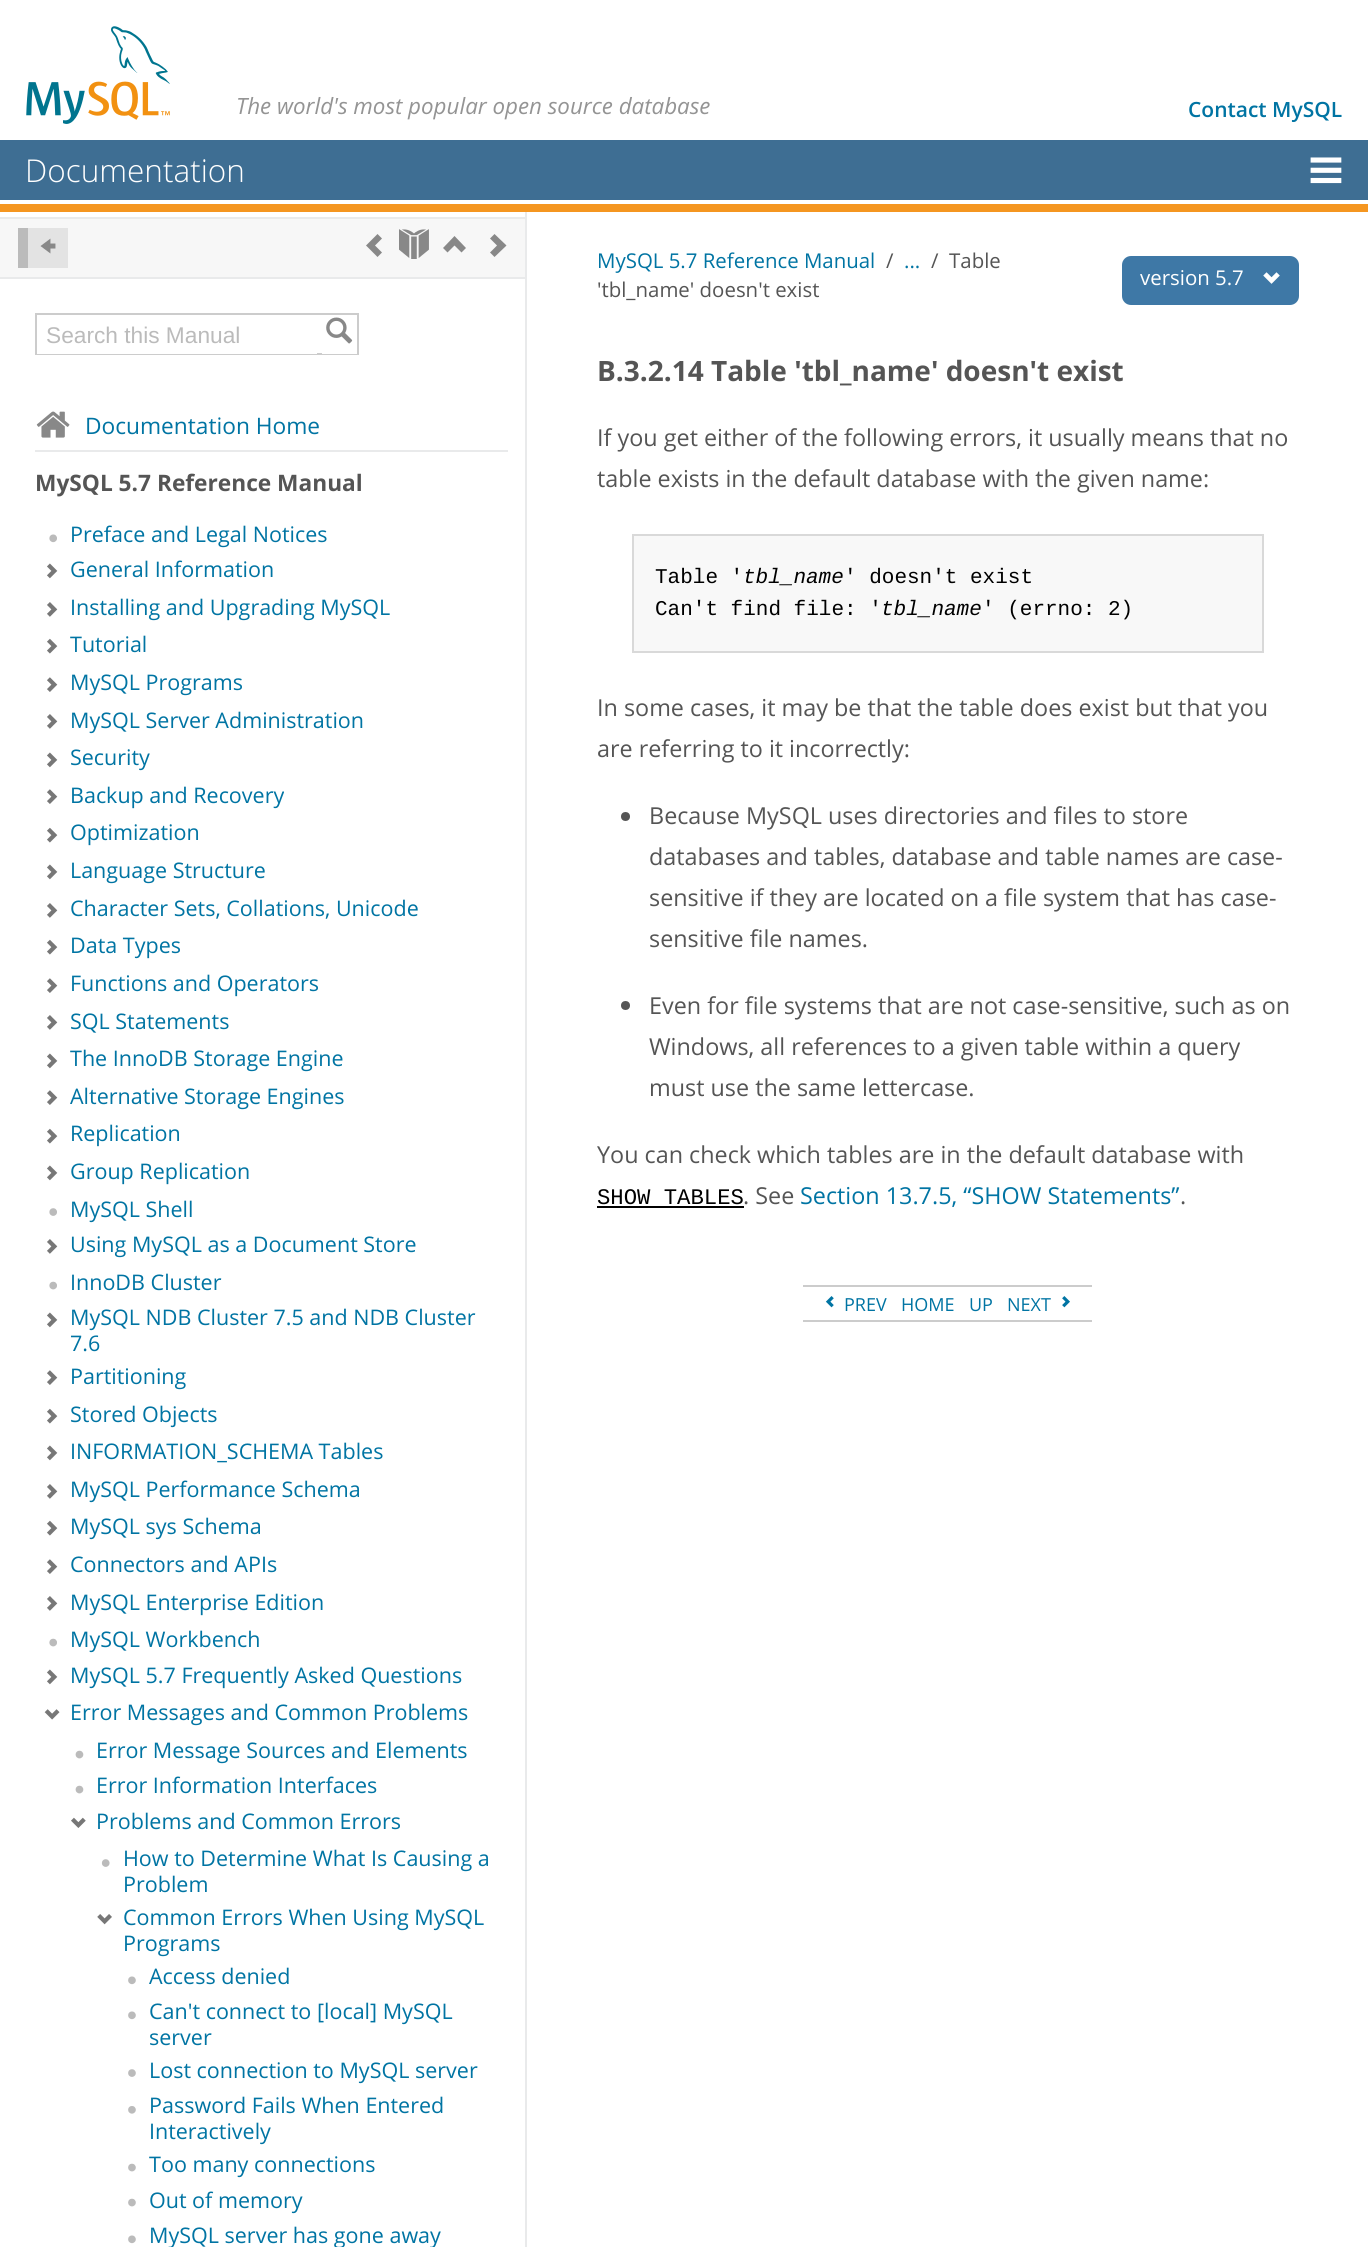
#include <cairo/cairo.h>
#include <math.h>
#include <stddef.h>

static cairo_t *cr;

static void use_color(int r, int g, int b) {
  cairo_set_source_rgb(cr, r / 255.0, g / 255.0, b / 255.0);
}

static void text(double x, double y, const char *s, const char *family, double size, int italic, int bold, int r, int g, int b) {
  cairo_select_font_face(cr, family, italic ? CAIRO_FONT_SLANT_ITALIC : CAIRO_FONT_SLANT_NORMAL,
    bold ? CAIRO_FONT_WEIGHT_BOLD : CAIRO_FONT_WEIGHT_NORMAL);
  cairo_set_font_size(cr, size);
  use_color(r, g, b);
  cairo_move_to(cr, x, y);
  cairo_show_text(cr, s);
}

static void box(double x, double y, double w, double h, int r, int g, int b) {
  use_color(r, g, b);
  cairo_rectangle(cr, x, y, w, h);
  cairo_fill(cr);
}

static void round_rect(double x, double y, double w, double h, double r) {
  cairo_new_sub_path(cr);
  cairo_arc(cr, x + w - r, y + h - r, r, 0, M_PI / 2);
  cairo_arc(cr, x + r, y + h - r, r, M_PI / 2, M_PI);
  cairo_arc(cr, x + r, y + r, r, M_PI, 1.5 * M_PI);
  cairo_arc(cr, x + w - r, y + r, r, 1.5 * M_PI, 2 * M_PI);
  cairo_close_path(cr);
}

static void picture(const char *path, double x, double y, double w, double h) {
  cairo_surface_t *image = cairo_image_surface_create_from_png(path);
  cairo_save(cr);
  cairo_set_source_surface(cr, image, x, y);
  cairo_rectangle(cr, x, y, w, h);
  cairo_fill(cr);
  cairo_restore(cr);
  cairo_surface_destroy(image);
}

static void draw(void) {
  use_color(255, 255, 255);
  cairo_paint(cr);
  picture("img_01.png", 26, 26, 144, 98);
  box(0, 140, 1368, 60, 62, 110, 147);
  picture("img_02.png", 1310, 157, 32, 27);
  box(0, 204, 1368, 8, 245, 150, 32);
  box(525, 212, 2, 2035, 233, 234, 235);
  box(0, 219, 525, 58, 247, 247, 247);
  box(0, 217, 525, 2, 233, 234, 235);
  box(0, 277, 525, 2, 233, 234, 235);
  box(28, 228, 40, 40, 227, 227, 227);
  box(18, 228, 10, 40, 187, 187, 187);
  picture("img_03.png", 40, 238, 16, 16);
  use_color(136, 136, 136);
  cairo_new_path(cr);
  cairo_move_to(cr, 382, 238.5);
  cairo_line_to(cr, 377.5, 234);
  cairo_line_to(cr, 366, 245.5);
  cairo_line_to(cr, 377.5, 257);
  cairo_line_to(cr, 382, 252.5);
  cairo_line_to(cr, 375, 245.5);
  cairo_close_path(cr);
  cairo_fill(cr);
  picture("img_04.png", 399, 229, 30, 30);
  cairo_new_path(cr);
  cairo_move_to(cr, 454.5, 236);
  cairo_line_to(cr, 443, 248);
  cairo_line_to(cr, 447.5, 252.5);
  cairo_line_to(cr, 454.5, 245.5);
  cairo_line_to(cr, 461.5, 252.5);
  cairo_line_to(cr, 466, 248);
  cairo_close_path(cr);
  cairo_fill(cr);
  cairo_new_path(cr);
  cairo_move_to(cr, 494.5, 234);
  cairo_line_to(cr, 490, 238.5);
  cairo_line_to(cr, 497, 245.5);
  cairo_line_to(cr, 490, 252.5);
  cairo_line_to(cr, 494.5, 257);
  cairo_line_to(cr, 506.5, 245.5);
  cairo_close_path(cr);
  cairo_fill(cr);
  cairo_rectangle(cr, 36, 314, 322, 40);
  use_color(204, 204, 204);
  cairo_stroke(cr);
  box(37, 353, 280, 1, 255, 255, 255);
  box(322, 353, 35, 1, 255, 255, 255);
  picture("img_05.png", 326, 317, 27, 27);
  picture("img_06.png", 36, 411, 34, 27);
  box(35, 450, 473, 2, 233, 234, 235);
  picture("img_07.png", 49, 534, 8, 9);
  picture("img_08.png", 47, 563, 11, 16);
  picture("img_09.png", 47, 602, 11, 15);
  picture("img_10.png", 47, 638, 11, 16);
  picture("img_11.png", 47, 677, 11, 15);
  picture("img_09.png", 47, 714, 11, 15);
  picture("img_08.png", 47, 752, 11, 16);
  picture("img_11.png", 47, 789, 11, 15);
  picture("img_10.png", 47, 827, 11, 16);
  picture("img_08.png", 47, 864, 11, 16);
  picture("img_09.png", 47, 903, 11, 15);
  picture("img_10.png", 47, 939, 11, 16);
  picture("img_11.png", 47, 978, 11, 15);
  picture("img_09.png", 47, 1015, 11, 15);
  picture("img_08.png", 47, 1053, 11, 16);
  picture("img_11.png", 47, 1090, 11, 15);
  picture("img_10.png", 47, 1128, 11, 16);
  picture("img_08.png", 47, 1165, 11, 16);
  picture("img_12.png", 49, 1208, 8, 8);
  picture("img_09.png", 47, 1239, 11, 15);
  picture("img_13.png", 49, 1281, 8, 9);
  picture("img_08.png", 47, 1312, 11, 16);
  picture("img_11.png", 47, 1370, 11, 15);
  picture("img_10.png", 47, 1408, 11, 16);
  picture("img_08.png", 47, 1445, 11, 16);
  picture("img_09.png", 47, 1484, 11, 15);
  picture("img_10.png", 47, 1520, 11, 16);
  picture("img_11.png", 47, 1559, 11, 15);
  picture("img_09.png", 47, 1596, 11, 15);
  picture("img_13.png", 49, 1638, 8, 9);
  picture("img_08.png", 47, 1669, 11, 16);
  picture("img_14.png", 44, 1709, 16, 11);
  picture("img_15.png", 75, 1750, 9, 9);
  picture("img_15.png", 75, 1785, 9, 9);
  picture("img_16.png", 71, 1817, 15, 11);
  picture("img_17.png", 101, 1859, 9, 8);
  picture("img_18.png", 97, 1914, 15, 11);
  picture("img_19.png", 128, 1976, 8, 9);
  picture("img_19.png", 128, 2011, 8, 9);
  picture("img_20.png", 128, 2069, 8, 8);
  picture("img_21.png", 128, 2106, 8, 8);
  picture("img_22.png", 128, 2163, 8, 9);
  picture("img_22.png", 128, 2198, 8, 9);
  picture("img_19.png", 128, 2235, 8, 9);
  use_color(62, 120, 166);
  round_rect(1122, 256, 177, 49, 9);
  cairo_fill(cr);
  picture("img_23.png", 1263, 272, 17, 12);
  use_color(248, 248, 248);
  cairo_rectangle(cr, 633, 535, 630, 117);
  cairo_fill_preserve(cr);
  use_color(217, 217, 217);
  cairo_stroke(cr);
  use_color(85, 85, 85);
  cairo_arc(cr, 625.5, 816.5, 4.5, 0, 2 * M_PI);
  cairo_fill(cr);
  cairo_arc(cr, 625.5, 1005.5, 4.5, 0, 2 * M_PI);
  cairo_fill(cr);
  box(597, 1206, 147, 2, 0, 0, 0);
  box(803, 1285, 289, 2, 204, 204, 204);
  box(803, 1320, 289, 2, 204, 204, 204);
  picture("img_24.png", 825, 1296, 9, 12);
  picture("img_25.png", 1062, 1296, 8, 12);
  text(236, 114, "The world's most popular open source database", "Open Sans", 22.4, 1, 0, 148, 148, 148);
  text(1188, 117, "Contact MySQL", "Open Sans SemiBold", 21, 0, 0, 0, 116, 163);
  text(25, 182, "Documentation", "Open Sans Light", 31.5, 0, 0, 255, 255, 255);
  text(46, 343, "Search this Manual", "Liberation Sans", 22.7, 0, 0, 187, 187, 187);
  text(85, 434, "Documentation Home", "Open Sans", 22.7, 0, 0, 0, 116, 163);
  text(35, 491, "MySQL 5.7 Reference Manual", "Open Sans", 22.7, 0, 1, 85, 85, 85);
  text(70, 542, "Preface and Legal Notices", "Open Sans", 21.5, 0, 0, 0, 116, 163);
  text(70, 577, "General Information", "Open Sans", 21.5, 0, 0, 0, 116, 163);
  text(70, 615, "Installing and Upgrading MySQL", "Open Sans", 21.5, 0, 0, 0, 116, 163);
  text(70, 652, "Tutorial", "Open Sans", 21.5, 0, 0, 0, 116, 163);
  text(70, 690, "MySQL Programs", "Open Sans", 21.5, 0, 0, 0, 116, 163);
  text(70, 728, "MySQL Server Administration", "Open Sans", 21.5, 0, 0, 0, 116, 163);
  text(70, 765, "Security", "Open Sans", 21.5, 0, 0, 0, 116, 163);
  text(70, 803, "Backup and Recovery", "Open Sans", 21.5, 0, 0, 0, 116, 163);
  text(70, 840, "Optimization", "Open Sans", 21.5, 0, 0, 0, 116, 163);
  text(70, 878, "Language Structure", "Open Sans", 21.5, 0, 0, 0, 116, 163);
  text(70, 916, "Character Sets, Collations, Unicode", "Open Sans", 21.5, 0, 0, 0, 116, 163);
  text(70, 953, "Data Types", "Open Sans", 21.5, 0, 0, 0, 116, 163);
  text(70, 991, "Functions and Operators", "Open Sans", 21.5, 0, 0, 0, 116, 163);
  text(70, 1029, "SQL Statements", "Open Sans", 21.5, 0, 0, 0, 116, 163);
  text(70, 1066, "The InnoDB Storage Engine", "Open Sans", 21.5, 0, 0, 0, 116, 163);
  text(70, 1104, "Alternative Storage Engines", "Open Sans", 21.5, 0, 0, 0, 116, 163);
  text(70, 1141, "Replication", "Open Sans", 21.5, 0, 0, 0, 116, 163);
  text(70, 1179, "Group Replication", "Open Sans", 21.5, 0, 0, 0, 116, 163);
  text(70, 1217, "MySQL Shell", "Open Sans", 21.5, 0, 0, 0, 116, 163);
  text(70, 1252, "Using MySQL as a Document Store", "Open Sans", 21.5, 0, 0, 0, 116, 163);
  text(70, 1290, "InnoDB Cluster", "Open Sans", 21.5, 0, 0, 0, 116, 163);
  text(70, 1325, "MySQL NDB Cluster 7.5 and NDB Cluster", "Open Sans", 21.5, 0, 0, 0, 116, 163);
  text(70, 1351, "7.6", "Open Sans", 21.5, 0, 0, 0, 116, 163);
  text(70, 1384, "Partitioning", "Open Sans", 21.5, 0, 0, 0, 116, 163);
  text(70, 1422, "Stored Objects", "Open Sans", 21.5, 0, 0, 0, 116, 163);
  text(70, 1459, "INFORMATION_SCHEMA Tables", "Open Sans", 21.5, 0, 0, 0, 116, 163);
  text(70, 1497, "MySQL Performance Schema", "Open Sans", 21.5, 0, 0, 0, 116, 163);
  text(70, 1534, "MySQL sys Schema", "Open Sans", 21.5, 0, 0, 0, 116, 163);
  text(70, 1572, "Connectors and APIs", "Open Sans", 21.5, 0, 0, 0, 116, 163);
  text(70, 1610, "MySQL Enterprise Edition", "Open Sans", 21.5, 0, 0, 0, 116, 163);
  text(70, 1647, "MySQL Workbench", "Open Sans", 21.5, 0, 0, 0, 116, 163);
  text(70, 1683, "MySQL 5.7 Frequently Asked Questions", "Open Sans", 21.5, 0, 0, 0, 116, 163);
  text(70, 1720, "Error Messages and Common Problems", "Open Sans", 21.5, 0, 0, 0, 116, 163);
  text(96, 1758, "Error Message Sources and Elements", "Open Sans", 21.5, 0, 0, 0, 116, 163);
  text(96, 1793, "Error Information Interfaces", "Open Sans", 21.5, 0, 0, 0, 116, 163);
  text(96, 1829, "Problems and Common Errors", "Open Sans", 21.5, 0, 0, 0, 116, 163);
  text(123, 1866, "How to Determine What Is Causing a", "Open Sans", 21.5, 0, 0, 0, 116, 163);
  text(123, 1892, "Problem", "Open Sans", 21.5, 0, 0, 0, 116, 163);
  text(123, 1925, "Common Errors When Using MySQL", "Open Sans", 21.5, 0, 0, 0, 116, 163);
  text(123, 1951, "Programs", "Open Sans", 21.5, 0, 0, 0, 116, 163);
  text(149, 1984, "Access denied", "Open Sans", 21.5, 0, 0, 0, 116, 163);
  text(149, 2019, "Can't connect to [local] MySQL", "Open Sans", 21.5, 0, 0, 0, 116, 163);
  text(149, 2045, "server", "Open Sans", 21.5, 0, 0, 0, 116, 163);
  text(149, 2078, "Lost connection to MySQL server", "Open Sans", 21.5, 0, 0, 0, 116, 163);
  text(149, 2113, "Password Fails When Entered", "Open Sans", 21.5, 0, 0, 0, 116, 163);
  text(149, 2139, "Interactively", "Open Sans", 21.5, 0, 0, 0, 116, 163);
  text(149, 2172, "Too many connections", "Open Sans", 21.5, 0, 0, 0, 116, 163);
  text(149, 2208, "Out of memory", "Open Sans", 21.5, 0, 0, 0, 116, 163);
  text(149, 2243, "MySQL server has gone away", "Open Sans", 21.5, 0, 0, 0, 116, 163);
  text(597, 268, "MySQL 5.7 Reference Manual", "Open Sans", 20.4, 0, 0, 0, 116, 163);
  text(886, 268, "/", "Open Sans", 20.4, 0, 0, 85, 85, 85);
  text(904, 268, "...", "Open Sans", 20.4, 0, 0, 0, 116, 163);
  text(931, 268, "/", "Open Sans", 20.4, 0, 0, 85, 85, 85);
  text(949, 268, "Table", "Open Sans", 20.4, 0, 0, 85, 85, 85);
  text(597, 297, "'tbl_name' doesn't exist", "Open Sans", 20.4, 0, 0, 85, 85, 85);
  text(1140, 285, "version 5.7", "Open Sans", 20.4, 0, 0, 255, 255, 255);
  text(597, 381, "B.3.2.14 Table 'tbl_name' doesn't exist", "Open Sans", 28, 0, 1, 85, 85, 85);
  text(597, 446, "If you get either of the following errors, it usually means that no", "Open Sans", 23.35, 0, 0, 85, 85, 85);
  text(597, 487, "table exists in the default database with the given name:", "Open Sans", 23.35, 0, 0, 85, 85, 85);
  text(655, 583, "Table '", "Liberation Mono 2", 21, 0, 0, 0, 0, 0);
  text(743, 583, "tbl_name", "Liberation Mono", 21, 1, 0, 0, 0, 0);
  text(844, 583, "' doesn't exist", "Liberation Mono 2", 21, 0, 0, 0, 0, 0);
  text(655, 615, "Can't find file: '", "Liberation Mono 2", 21, 0, 0, 0, 0, 0);
  text(881, 615, "tbl_name", "Liberation Mono", 21, 1, 0, 0, 0, 0);
  text(982, 615, "' (errno: 2)", "Liberation Mono 2", 21, 0, 0, 0, 0, 0);
  text(597, 716, "In some cases, it may be that the table does exist but that you", "Open Sans", 23.35, 0, 0, 85, 85, 85);
  text(597, 757, "are referring to it incorrectly:", "Open Sans", 23.35, 0, 0, 85, 85, 85);
  text(649, 824, "Because MySQL uses directories and files to store", "Open Sans", 23.35, 0, 0, 85, 85, 85);
  text(649, 865, "databases and tables, database and table names are case-", "Open Sans", 23.35, 0, 0, 85, 85, 85);
  text(649, 906, "sensitive if they are located on a file system that has case-", "Open Sans", 23.35, 0, 0, 85, 85, 85);
  text(649, 947, "sensitive file names.", "Open Sans", 23.35, 0, 0, 85, 85, 85);
  text(649, 1014, "Even for file systems that are not case-sensitive, such as on", "Open Sans", 23.35, 0, 0, 85, 85, 85);
  text(649, 1055, "Windows, all references to a given table within a query", "Open Sans", 23.35, 0, 0, 85, 85, 85);
  text(649, 1096, "must use the same lettercase.", "Open Sans", 23.35, 0, 0, 85, 85, 85);
  text(597, 1163, "You can check which tables are in the default database with", "Open Sans", 23.35, 0, 0, 85, 85, 85);
  text(597, 1204, "SHOW TABLES", "Liberation Mono", 22.25, 0, 0, 0, 0, 0);
  text(743, 1204, ". See", "Open Sans", 23.35, 0, 0, 85, 85, 85);
  text(800, 1204, "Section 13.7.5, “SHOW Statements”", "Open Sans", 23.35, 0, 0, 0, 116, 163);
  text(1180, 1204, ".", "Open Sans", 23.35, 0, 0, 85, 85, 85);
  text(844, 1311, "PREV", "Open Sans", 18, 0, 0, 0, 116, 163);
  text(901, 1311, "HOME", "Open Sans", 18, 0, 0, 0, 116, 163);
  text(969, 1311, "UP", "Open Sans", 18, 0, 0, 0, 116, 163);
  text(1007, 1311, "NEXT", "Open Sans", 18, 0, 0, 0, 116, 163);
}

int main(void) {
  cairo_surface_t *surface = cairo_image_surface_create(CAIRO_FORMAT_RGB24, 1368, 2247);
  cr = cairo_create(surface);
  cairo_font_options_t *options = cairo_font_options_create();
  cairo_font_options_set_hint_metrics(options, CAIRO_HINT_METRICS_OFF);
  cairo_font_options_set_hint_style(options, CAIRO_HINT_STYLE_NONE);
  cairo_set_font_options(cr, options);
  cairo_set_miter_limit(cr, 4);
  draw();
  cairo_surface_write_to_png(surface, "out.png");
  cairo_font_options_destroy(options);
  cairo_destroy(cr);
  cairo_surface_destroy(surface);
  return 0;
}
